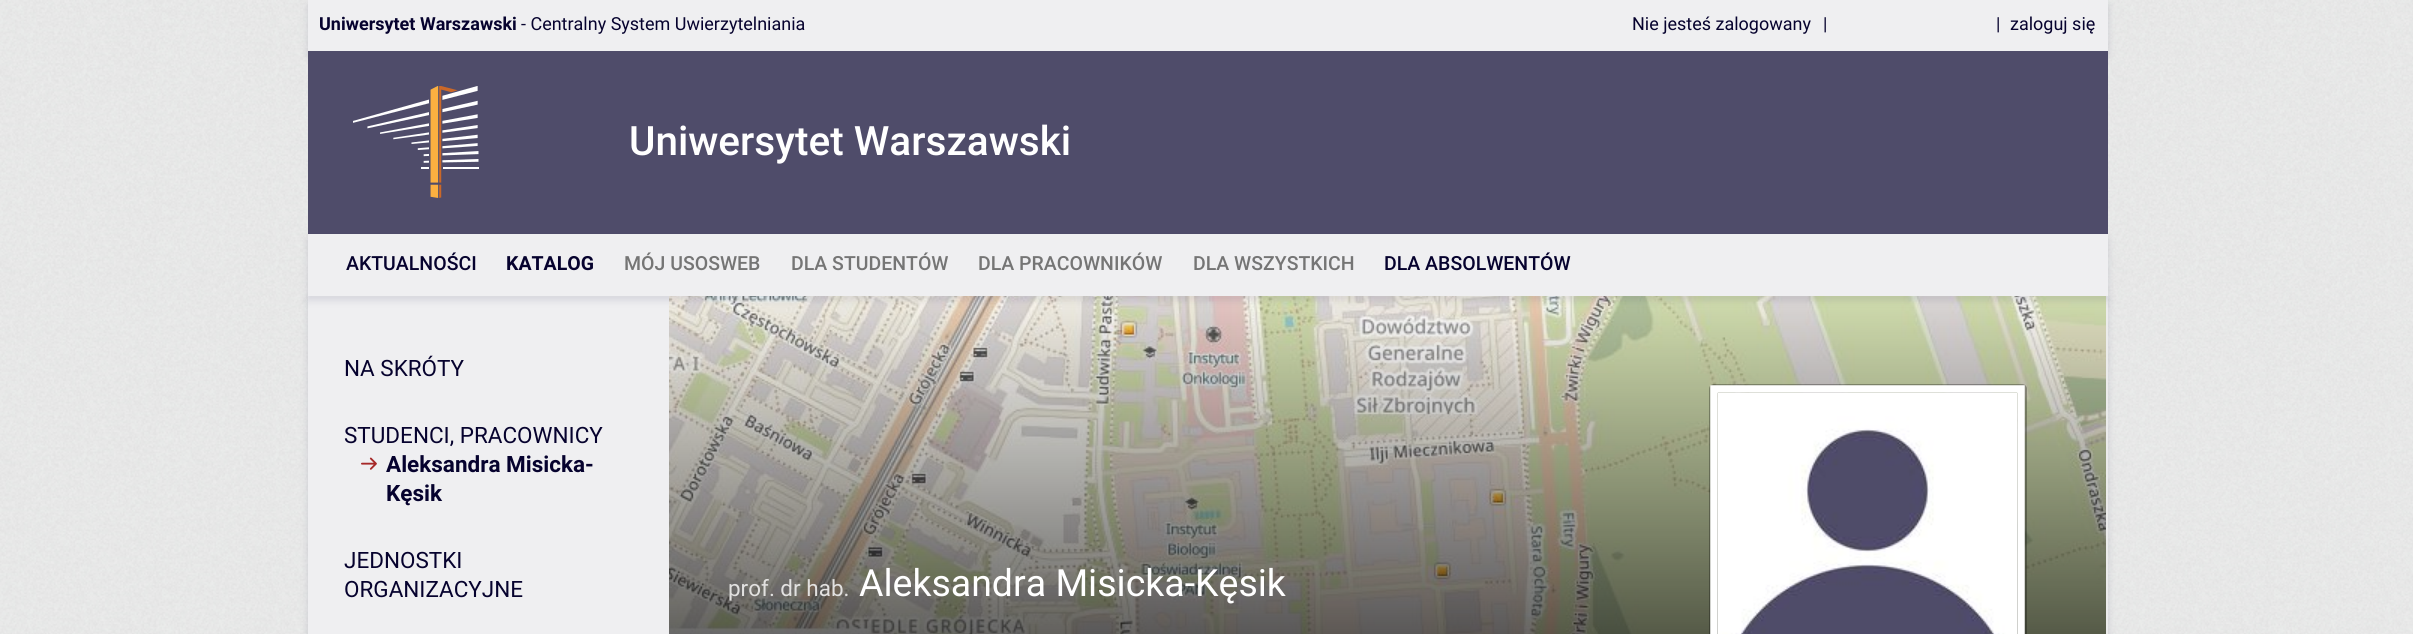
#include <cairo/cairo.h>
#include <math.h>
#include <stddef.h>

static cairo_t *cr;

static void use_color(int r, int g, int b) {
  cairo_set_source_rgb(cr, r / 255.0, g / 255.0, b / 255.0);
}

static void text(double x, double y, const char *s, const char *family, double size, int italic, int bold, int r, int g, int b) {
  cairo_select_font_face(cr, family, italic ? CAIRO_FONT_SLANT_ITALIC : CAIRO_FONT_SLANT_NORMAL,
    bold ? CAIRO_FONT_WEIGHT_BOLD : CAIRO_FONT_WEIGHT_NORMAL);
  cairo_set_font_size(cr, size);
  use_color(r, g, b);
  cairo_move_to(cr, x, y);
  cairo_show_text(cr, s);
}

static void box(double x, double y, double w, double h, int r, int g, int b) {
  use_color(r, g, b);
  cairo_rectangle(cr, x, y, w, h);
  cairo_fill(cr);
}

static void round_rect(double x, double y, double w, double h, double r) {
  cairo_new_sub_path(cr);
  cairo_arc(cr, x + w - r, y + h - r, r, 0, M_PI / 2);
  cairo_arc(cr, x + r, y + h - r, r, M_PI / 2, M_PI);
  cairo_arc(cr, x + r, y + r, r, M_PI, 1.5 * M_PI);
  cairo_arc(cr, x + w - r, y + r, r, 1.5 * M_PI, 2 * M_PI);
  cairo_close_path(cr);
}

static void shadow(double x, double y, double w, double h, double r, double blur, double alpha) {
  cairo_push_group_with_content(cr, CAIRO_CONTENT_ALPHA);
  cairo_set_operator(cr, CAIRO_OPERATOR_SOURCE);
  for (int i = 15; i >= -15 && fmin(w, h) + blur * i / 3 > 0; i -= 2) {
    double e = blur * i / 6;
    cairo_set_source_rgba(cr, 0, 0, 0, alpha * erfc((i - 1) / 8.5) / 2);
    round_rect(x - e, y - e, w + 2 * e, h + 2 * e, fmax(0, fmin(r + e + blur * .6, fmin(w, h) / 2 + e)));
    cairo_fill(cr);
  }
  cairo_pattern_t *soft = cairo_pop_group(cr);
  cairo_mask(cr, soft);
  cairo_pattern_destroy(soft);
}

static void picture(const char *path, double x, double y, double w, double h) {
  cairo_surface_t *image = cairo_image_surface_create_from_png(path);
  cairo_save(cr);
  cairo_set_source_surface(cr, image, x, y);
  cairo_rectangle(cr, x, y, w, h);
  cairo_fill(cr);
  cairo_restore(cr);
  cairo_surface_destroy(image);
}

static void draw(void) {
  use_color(255, 255, 255);
  cairo_paint(cr);
  picture("img_01.png", 0, 0, 2413, 634);
  use_color(6, 6, 51);
  shadow(308, 5, 1800, 51, 0, 4.5, 0.12);
  box(308, 0, 1800, 51, 239, 239, 241);
  box(308, 51, 1800, 183, 79, 76, 106);
  picture("img_02.png", 353, 86, 126, 112);
  use_color(6, 6, 51);
  shadow(308, 300, 1800, 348, 0, 4.5, 0.12);
  box(308, 296, 361, 338, 239, 239, 241);
  box(2106, 296, 2, 338, 235, 235, 235);
  picture("img_04.png", 669, 296, 1437, 338);
  use_color(6, 6, 51);
  shadow(308, 239, 1800, 61, 0, 4.5, 0.12);
  box(308, 234, 1800, 62, 239, 239, 241);
  picture("img_03.png", 361, 457, 16, 13);
  cairo_set_source_rgba(cr, 0, 0, 0, 0.3);
  round_rect(1709, 384, 318, 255, 5);
  cairo_fill(cr);
  cairo_new_path(cr);
  cairo_move_to(cr, 1714, 389);
  cairo_line_to(cr, 2021, 389);
  cairo_line_to(cr, 2021, 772);
  cairo_line_to(cr, 1714, 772);
  cairo_close_path(cr);
  use_color(255, 255, 255);
  cairo_set_line_width(cr, 7.5);
  cairo_stroke(cr);
  picture("img_05.png", 1718, 393, 299, 241);
  text(319, 30, "Uniwersytet Warszawski", "Roboto", 18, 0, 1, 6, 2, 46);
  text(521, 30, "- Centralny System Uwierzytelniania", "Roboto", 18, 0, 0, 6, 2, 46);
  text(1632, 30, "Nie jesteś zalogowany", "Roboto", 18, 0, 0, 6, 2, 46);
  text(1823, 30, "|", "Roboto", 18, 0, 0, 6, 2, 46);
  text(1996, 30, "|", "Roboto", 18, 0, 0, 6, 2, 46);
  text(2010, 30, "zaloguj się", "Roboto", 18, 0, 0, 6, 2, 46);
  text(629, 155, "Uniwersytet Warszawski", "Roboto Medium", 40.5, 0, 0, 255, 255, 255);
  text(346, 270, "AKTUALNOŚCI", "Roboto Medium", 19.5, 0, 0, 6, 2, 46);
  text(506, 270, "KATALOG", "Roboto", 19.5, 0, 1, 6, 2, 46);
  text(624, 270, "MÓJ USOSWEB", "Roboto Medium", 19.5, 0, 0, 117, 117, 117);
  text(791, 270, "DLA STUDENTÓW", "Roboto Medium", 19.5, 0, 0, 117, 117, 117);
  text(978, 270, "DLA PRACOWNIKÓW", "Roboto Medium", 19.5, 0, 0, 117, 117, 117);
  text(1193, 270, "DLA WSZYSTKICH", "Roboto Medium", 19.5, 0, 0, 117, 117, 117);
  text(1384, 270, "DLA ABSOLWENTÓW", "Roboto Medium", 19.5, 0, 0, 6, 2, 46);
  text(344, 376, "NA SKRÓTY", "Roboto", 22.5, 0, 0, 6, 2, 46);
  text(344, 443, "STUDENCI, PRACOWNICY", "Roboto", 22.5, 0, 0, 6, 2, 46);
  text(386, 472, "Aleksandra Misicka-", "Roboto", 22.5, 0, 1, 6, 2, 46);
  text(386, 501, "Kęsik", "Roboto", 22.5, 0, 1, 6, 2, 46);
  text(344, 568, "JEDNOSTKI", "Roboto", 22.5, 0, 0, 6, 2, 46);
  text(344, 597, "ORGANIZACYJNE", "Roboto", 22.5, 0, 0, 6, 2, 46);
  text(728, 596, "prof. dr hab.", "Roboto", 22.5, 0, 0, 226, 225, 224);
  text(859, 596, "Aleksandra Misicka-Kęsik", "Roboto", 37.5, 0, 0, 255, 255, 255);
}

int main(void) {
  cairo_surface_t *surface = cairo_image_surface_create(CAIRO_FORMAT_RGB24, 2413, 634);
  cr = cairo_create(surface);
  cairo_font_options_t *options = cairo_font_options_create();
  cairo_font_options_set_hint_metrics(options, CAIRO_HINT_METRICS_OFF);
  cairo_font_options_set_hint_style(options, CAIRO_HINT_STYLE_NONE);
  cairo_set_font_options(cr, options);
  cairo_set_miter_limit(cr, 4);
  draw();
  cairo_surface_write_to_png(surface, "out.png");
  cairo_font_options_destroy(options);
  cairo_destroy(cr);
  cairo_surface_destroy(surface);
  return 0;
}
